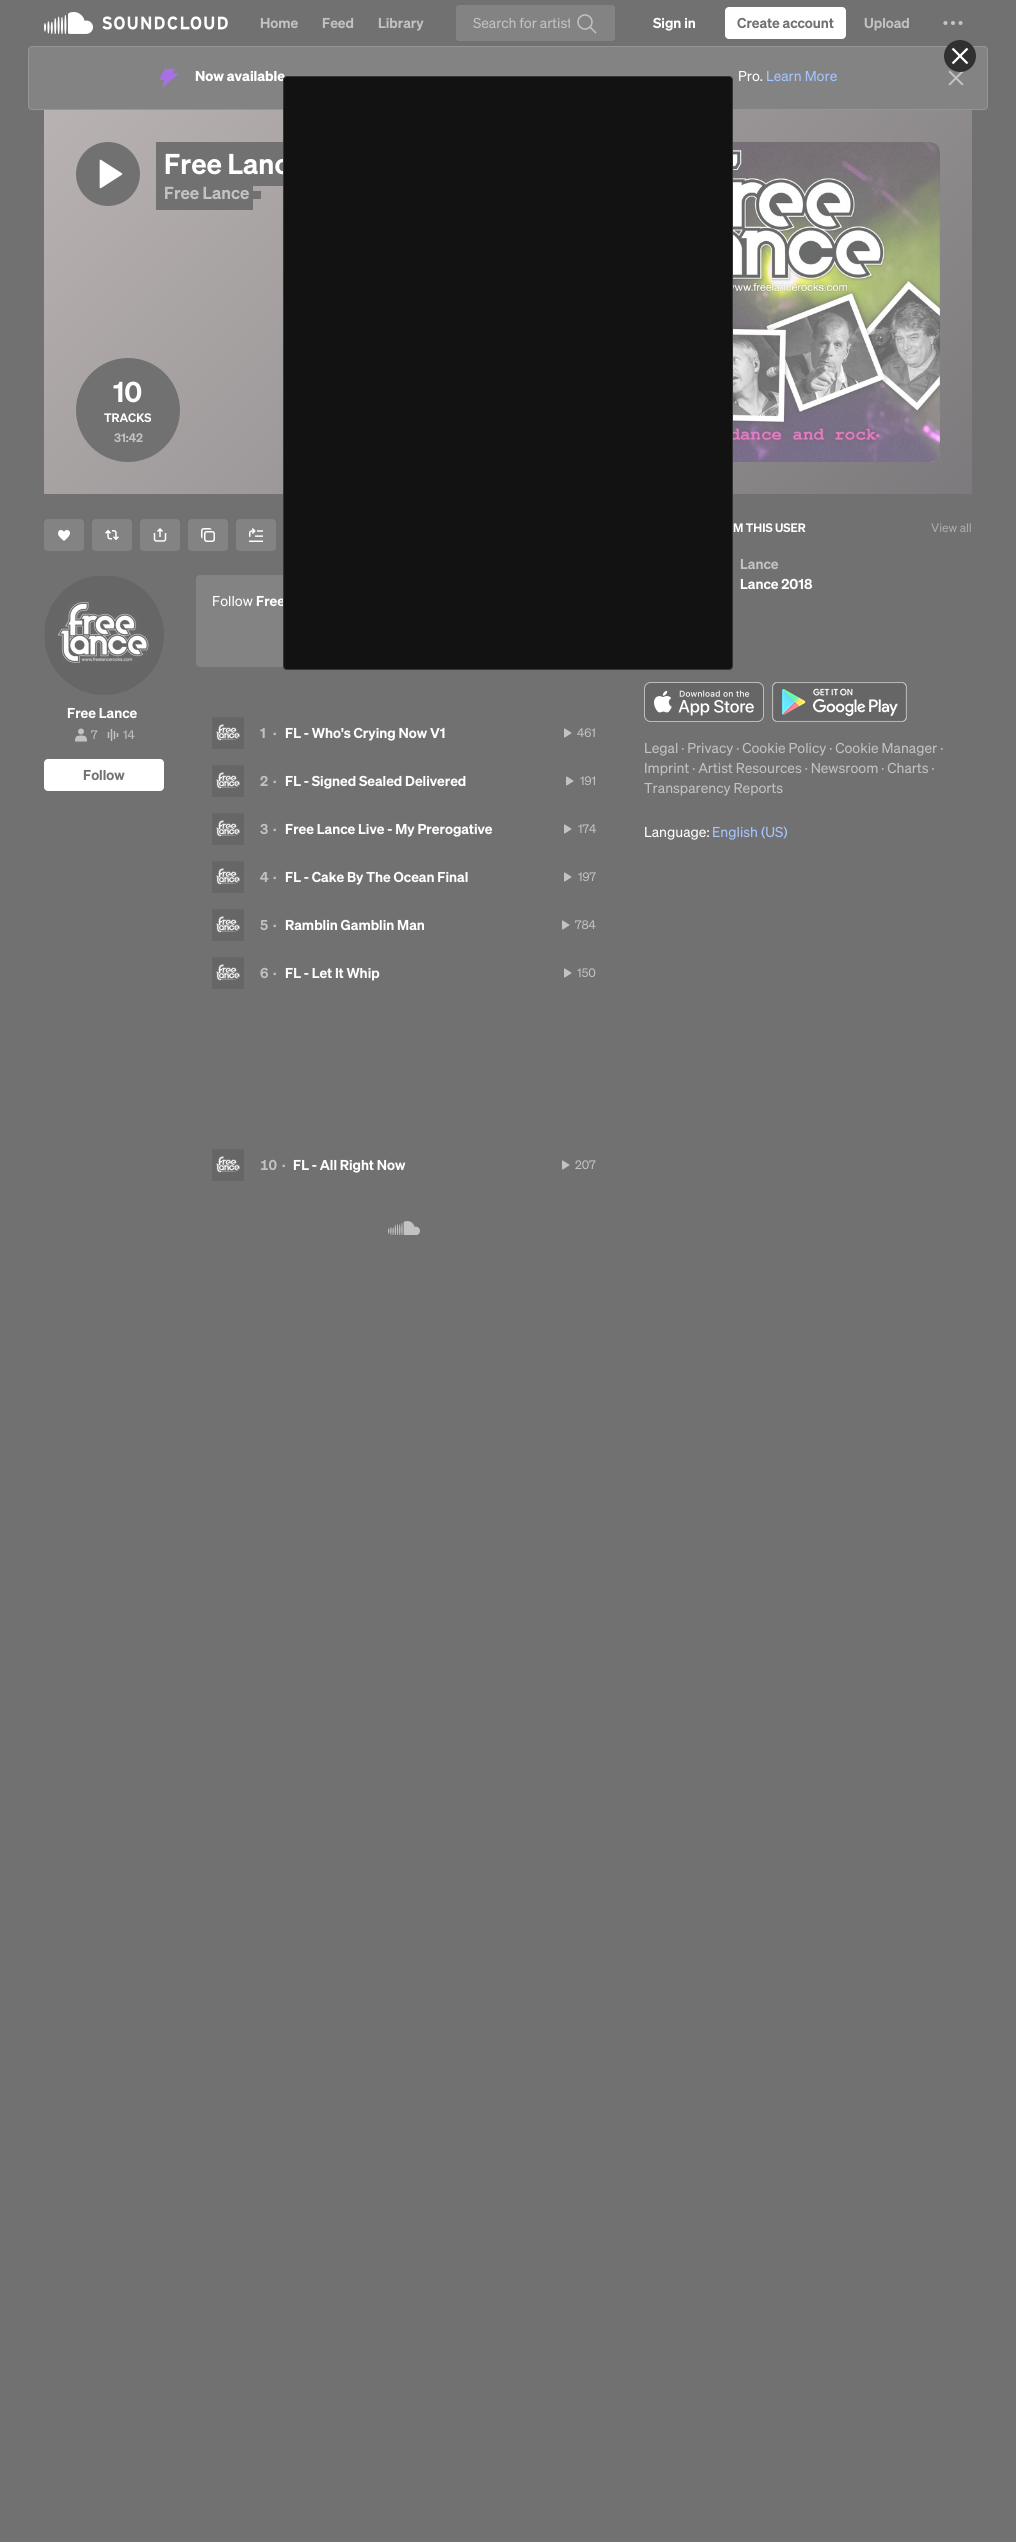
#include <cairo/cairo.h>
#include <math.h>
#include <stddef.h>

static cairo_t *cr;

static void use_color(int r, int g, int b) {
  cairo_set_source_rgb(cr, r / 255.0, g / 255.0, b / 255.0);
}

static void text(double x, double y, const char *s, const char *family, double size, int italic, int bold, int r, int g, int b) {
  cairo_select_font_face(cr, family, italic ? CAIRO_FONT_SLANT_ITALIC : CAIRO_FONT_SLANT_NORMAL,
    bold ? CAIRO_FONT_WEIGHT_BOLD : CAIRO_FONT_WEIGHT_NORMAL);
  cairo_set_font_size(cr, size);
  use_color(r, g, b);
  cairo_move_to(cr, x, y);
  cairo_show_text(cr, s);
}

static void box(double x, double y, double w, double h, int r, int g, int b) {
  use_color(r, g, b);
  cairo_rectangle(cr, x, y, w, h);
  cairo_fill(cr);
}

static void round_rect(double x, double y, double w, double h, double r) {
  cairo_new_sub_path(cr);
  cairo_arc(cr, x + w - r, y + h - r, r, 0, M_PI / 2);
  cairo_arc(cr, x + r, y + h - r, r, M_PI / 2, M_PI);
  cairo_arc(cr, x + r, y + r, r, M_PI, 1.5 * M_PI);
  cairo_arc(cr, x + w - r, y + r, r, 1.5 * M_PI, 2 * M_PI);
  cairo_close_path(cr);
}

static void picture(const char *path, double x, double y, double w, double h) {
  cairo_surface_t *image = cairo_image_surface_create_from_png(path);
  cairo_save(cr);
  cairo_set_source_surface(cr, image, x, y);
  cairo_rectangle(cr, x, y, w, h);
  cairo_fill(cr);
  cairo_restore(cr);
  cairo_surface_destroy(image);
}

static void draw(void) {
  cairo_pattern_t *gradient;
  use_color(113, 113, 113);
  cairo_paint(cr);
  picture("img_01.png", 44, 12, 184, 22);
  use_color(131, 131, 131);
  round_rect(456, 5, 159, 36, 3);
  cairo_fill(cr);
  picture("img_02.png", 577, 14, 20, 20);
  use_color(255, 255, 255);
  round_rect(725, 7, 121, 32, 4);
  cairo_fill(cr);
  picture("img_03.png", 943, 21, 20, 4);
  use_color(131, 131, 131);
  round_rect(28, 46, 960, 64, 4);
  cairo_fill(cr);
  round_rect(28.5, 46.5, 959, 63, 3.5);
  cairo_set_source_rgba(cr, 1, 1, 1, 0.15);
  cairo_set_line_width(cr, 1);
  cairo_stroke(cr);
  picture("img_04.png", 159, 68, 20, 20);
  picture("img_05.png", 948, 70, 16, 16);
  gradient = cairo_pattern_create_linear(180, -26, 836, 630);
  cairo_pattern_add_color_stop_rgba(gradient, 0, 0.725, 0.698, 0.698, 1);
  cairo_pattern_add_color_stop_rgba(gradient, 1, 0.486, 0.478, 0.486, 1);
  cairo_set_source(cr, gradient);
  cairo_pattern_destroy(gradient);
  cairo_rectangle(cr, 44, 110, 928, 384);
  cairo_fill(cr);
  use_color(113, 113, 113);
  cairo_arc(cr, 108, 174, 32, 0, 2 * M_PI);
  cairo_fill(cr);
  picture("img_06.png", 99, 159, 24, 30);
  box(156, 142, 127, 44, 113, 113, 113);
  box(156, 186, 97, 24, 113, 113, 113);
  box(253, 191, 8, 8, 113, 113, 113);
  gradient = cairo_pattern_create_linear(620, 142, 940, 462);
  cairo_pattern_add_color_stop_rgba(gradient, 0, 0.941, 0.71, 0.659, 1);
  cairo_pattern_add_color_stop_rgba(gradient, 1, 0.733, 0.71, 0.714, 1);
  cairo_set_source(cr, gradient);
  cairo_pattern_destroy(gradient);
  round_rect(620, 142, 320, 320, 10);
  cairo_fill(cr);
  picture("img_07.png", 733, 142, 207, 320);
  round_rect(620.5, 142.5, 319, 319, 9.5);
  cairo_set_source_rgba(cr, 0.443, 0.443, 0.443, 0.1);
  cairo_stroke(cr);
  use_color(113, 113, 113);
  cairo_arc(cr, 128, 410, 52, 0, 2 * M_PI);
  cairo_fill(cr);
  use_color(131, 131, 131);
  round_rect(44, 519, 40, 32, 4);
  cairo_fill(cr);
  picture("img_08.png", 58, 530, 12, 11);
  round_rect(92, 519, 40, 32, 4);
  cairo_fill(cr);
  picture("img_09.png", 105, 529, 14, 12);
  round_rect(140, 519, 40, 32, 4);
  cairo_fill(cr);
  picture("img_10.png", 153, 528, 14, 14);
  round_rect(188, 519, 40, 32, 4);
  cairo_fill(cr);
  picture("img_11.png", 201, 528, 14, 14);
  round_rect(236, 519, 40, 32, 4);
  cairo_fill(cr);
  picture("img_12.png", 249, 528, 14, 14);
  picture("img_13.png", 44, 576, 120, 119);
  picture("img_14.png", 75, 728, 12, 14);
  picture("img_15.png", 107, 729, 12, 12);
  use_color(255, 255, 255);
  round_rect(44, 759, 120, 32, 4);
  cairo_fill(cr);
  use_color(131, 131, 131);
  round_rect(196, 575, 416, 92, 4);
  cairo_fill(cr);
  picture("img_16.png", 212, 717, 32, 32);
  picture("img_17.png", 564, 728, 8, 10);
  picture("img_18.png", 212, 765, 32, 32);
  picture("img_17.png", 566, 776, 8, 10);
  picture("img_18.png", 212, 813, 32, 32);
  picture("img_17.png", 564, 824, 8, 10);
  picture("img_19.png", 212, 861, 32, 32);
  picture("img_17.png", 564, 872, 8, 10);
  picture("img_19.png", 212, 909, 32, 32);
  picture("img_17.png", 562, 920, 8, 10);
  picture("img_16.png", 212, 957, 32, 32);
  picture("img_17.png", 564, 968, 8, 10);
  picture("img_16.png", 212, 1149, 32, 32);
  picture("img_17.png", 562, 1160, 8, 10);
  picture("img_20.png", 388, 1221, 32, 14);
  picture("img_21.png", 644, 682, 120, 40);
  picture("img_22.png", 772, 682, 135, 40);
  use_color(48, 48, 48);
  cairo_arc(cr, 960, 56, 16, 0, 2 * M_PI);
  cairo_fill(cr);
  picture("img_23.png", 951, 47, 18, 18);
  text(260, 28, "Home", "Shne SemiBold", 14, 0, 0, 194, 194, 194);
  text(322, 28, "Feed", "Shne SemiBold", 14, 0, 0, 194, 194, 194);
  text(378, 28, "Library", "Shne SemiBold", 14, 0, 0, 194, 194, 194);
  cairo_save(cr);
  cairo_rectangle(cr, 473, 12, 97, 22);
  cairo_clip(cr);
  text(473, 28, "Search for artist", "Shne", 14, 0, 0, 194, 194, 194);
  cairo_restore(cr);
  text(653, 28, "Sign in", "Shne SemiBold", 14, 0, 0, 255, 255, 255);
  text(737, 28, "Create account", "Shne SemiBold", 14, 0, 0, 113, 113, 113);
  text(864, 28, "Upload", "Shne SemiBold", 14, 0, 0, 194, 194, 194);
  text(195, 81, "Now available", "Shne", 14, 0, 1, 255, 255, 255);
  text(738, 81, "Pro.", "Shne", 14, 0, 0, 255, 255, 255);
  text(766, 81, "Learn More", "Shne", 14, 0, 0, 165, 197, 255);
  text(164, 174, "Free Lanc", "Shne SemiBold", 28, 0, 0, 255, 255, 255);
  text(164, 199, "Free Lance", "Shne SemiBold", 17, 0, 0, 194, 194, 194);
  text(113, 402, "10", "Shne SemiBold", 28, 0, 0, 255, 255, 255);
  text(104, 422, "TRACKS", "Shne SemiBold", 12, 0, 0, 255, 255, 255);
  text(114, 442, "31:42", "Shne SemiBold", 12, 0, 0, 194, 194, 194);
  text(67, 718, "Free Lance", "Shne SemiBold", 14, 0, 0, 255, 255, 255);
  text(91, 739, "7", "Shne", 12, 0, 0, 194, 194, 194);
  text(123, 739, "14", "Shne", 12, 0, 0, 194, 194, 194);
  text(83, 780, "Follow", "Shne SemiBold", 14, 0, 0, 113, 113, 113);
  text(212, 606, "Follow", "Shne", 14, 0, 0, 255, 255, 255);
  text(256, 606, "Free", "Shne SemiBold", 14, 0, 0, 255, 255, 255);
  text(260, 738, "1", "Shne SemiBold", 14, 0, 0, 194, 194, 194);
  text(273, 738, "·", "Shne SemiBold", 14, 0, 0, 194, 194, 194);
  text(285, 738, "FL - Who's Crying Now V1", "Shne SemiBold", 14, 0, 0, 255, 255, 255);
  text(577, 737, "461", "Shne", 12, 0, 0, 194, 194, 194);
  text(260, 786, "2", "Shne SemiBold", 14, 0, 0, 194, 194, 194);
  text(273, 786, "·", "Shne SemiBold", 14, 0, 0, 194, 194, 194);
  text(285, 786, "FL - Signed Sealed Delivered", "Shne SemiBold", 14, 0, 0, 255, 255, 255);
  text(580, 785, "191", "Shne", 12, 0, 0, 194, 194, 194);
  text(260, 834, "3", "Shne SemiBold", 14, 0, 0, 194, 194, 194);
  text(273, 834, "·", "Shne SemiBold", 14, 0, 0, 194, 194, 194);
  text(285, 834, "Free Lance Live - My Prerogative", "Shne SemiBold", 14, 0, 0, 255, 255, 255);
  text(578, 833, "174", "Shne", 12, 0, 0, 194, 194, 194);
  text(260, 882, "4", "Shne SemiBold", 14, 0, 0, 194, 194, 194);
  text(273, 882, "·", "Shne SemiBold", 14, 0, 0, 194, 194, 194);
  text(285, 882, "FL - Cake By The Ocean Final", "Shne SemiBold", 14, 0, 0, 255, 255, 255);
  text(578, 881, "197", "Shne", 12, 0, 0, 194, 194, 194);
  text(260, 930, "5", "Shne SemiBold", 14, 0, 0, 194, 194, 194);
  text(273, 930, "·", "Shne SemiBold", 14, 0, 0, 194, 194, 194);
  text(285, 930, "Ramblin Gamblin Man", "Shne SemiBold", 14, 0, 0, 255, 255, 255);
  text(575, 929, "784", "Shne", 12, 0, 0, 194, 194, 194);
  text(260, 978, "6", "Shne SemiBold", 14, 0, 0, 194, 194, 194);
  text(273, 978, "·", "Shne SemiBold", 14, 0, 0, 194, 194, 194);
  text(285, 978, "FL - Let It Whip", "Shne SemiBold", 14, 0, 0, 255, 255, 255);
  text(577, 977, "150", "Shne", 12, 0, 0, 194, 194, 194);
  text(260, 1170, "10", "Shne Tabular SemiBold", 14, 0, 0, 194, 194, 194);
  text(282, 1170, "·", "Shne SemiBold", 14, 0, 0, 194, 194, 194);
  text(293, 1170, "FL - All Right Now", "Shne SemiBold", 14, 0, 0, 255, 255, 255);
  text(575, 1169, "207", "Shne", 12, 0, 0, 194, 194, 194);
  text(733, 532, "M THIS USER", "Shne SemiBold", 12, 0, 0, 255, 255, 255);
  text(931, 532, "View all", "Shne", 12, 0, 0, 172, 172, 172);
  text(740, 569, "Lance", "Shne SemiBold", 14, 0, 0, 194, 194, 194);
  text(740, 589, "Lance 2018", "Shne SemiBold", 14, 0, 0, 255, 255, 255);
  text(644, 753, "Legal · Privacy · Cookie Policy · Cookie Manager ·", "Shne", 14, 0, 0, 194, 194, 194);
  text(644, 773, "Imprint · Artist Resources · Newsroom · Charts ·", "Shne", 14, 0, 0, 194, 194, 194);
  text(644, 793, "Transparency Reports", "Shne", 14, 0, 0, 194, 194, 194);
  text(644, 837, "Language:", "Shne", 14, 0, 0, 255, 255, 255);
  text(712, 837, "English (US)", "Shne", 14, 0, 0, 165, 197, 255);
  use_color(18, 18, 18);
  round_rect(283, 76, 450, 594, 4);
  cairo_fill(cr);
  round_rect(283.5, 76.5, 449, 593, 3.5);
  cairo_set_source_rgba(cr, 1, 1, 1, 0.15);
  cairo_stroke(cr);
}

int main(void) {
  cairo_surface_t *surface = cairo_image_surface_create(CAIRO_FORMAT_RGB24, 1016, 2542);
  cr = cairo_create(surface);
  cairo_font_options_t *options = cairo_font_options_create();
  cairo_font_options_set_hint_metrics(options, CAIRO_HINT_METRICS_OFF);
  cairo_font_options_set_hint_style(options, CAIRO_HINT_STYLE_NONE);
  cairo_set_font_options(cr, options);
  cairo_set_miter_limit(cr, 4);
  draw();
  cairo_surface_write_to_png(surface, "out.png");
  cairo_font_options_destroy(options);
  cairo_destroy(cr);
  cairo_surface_destroy(surface);
  return 0;
}
